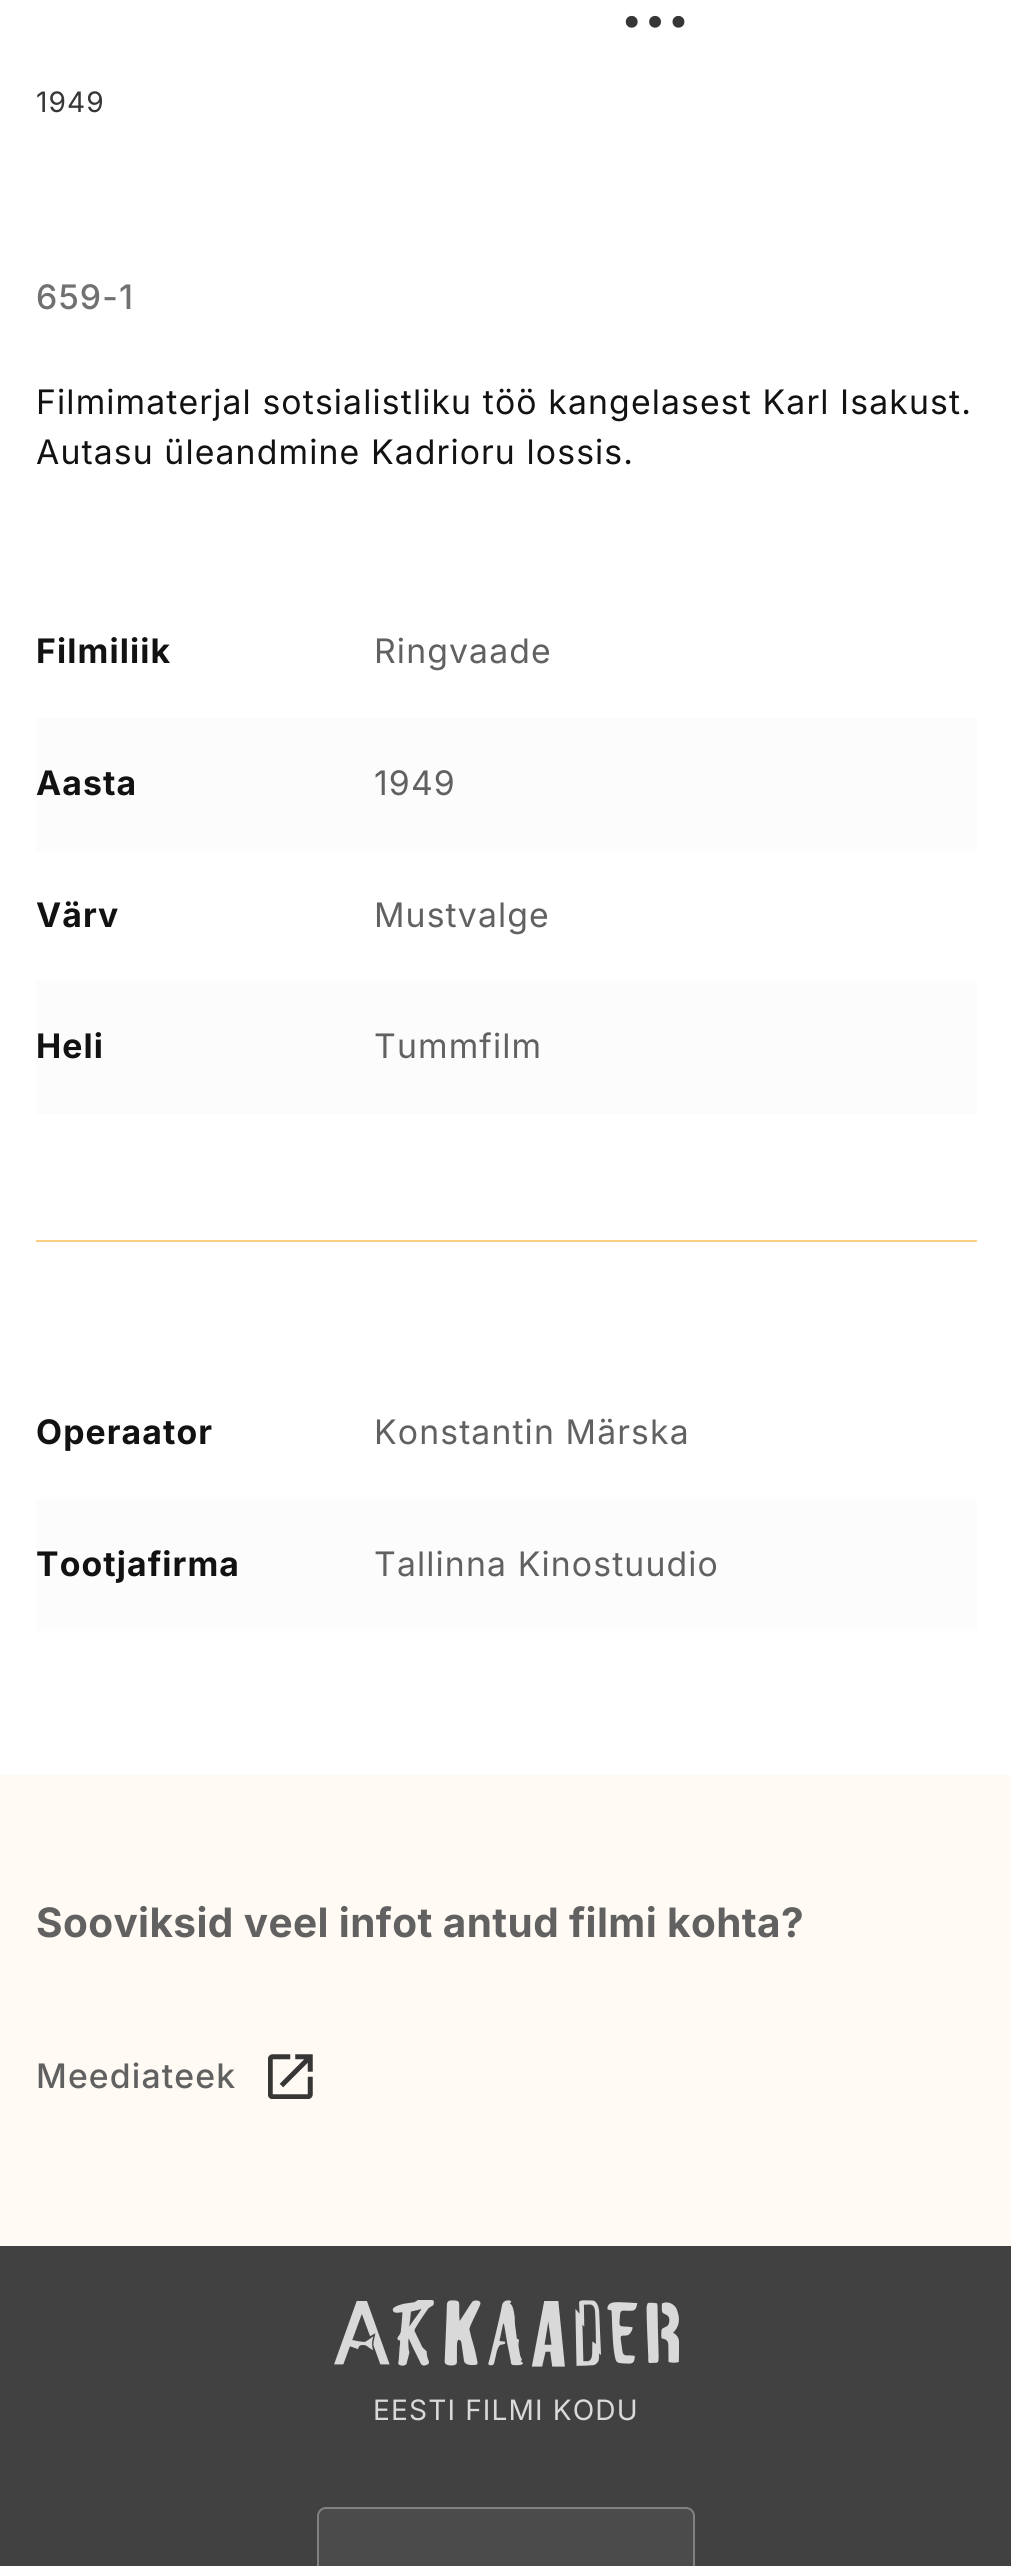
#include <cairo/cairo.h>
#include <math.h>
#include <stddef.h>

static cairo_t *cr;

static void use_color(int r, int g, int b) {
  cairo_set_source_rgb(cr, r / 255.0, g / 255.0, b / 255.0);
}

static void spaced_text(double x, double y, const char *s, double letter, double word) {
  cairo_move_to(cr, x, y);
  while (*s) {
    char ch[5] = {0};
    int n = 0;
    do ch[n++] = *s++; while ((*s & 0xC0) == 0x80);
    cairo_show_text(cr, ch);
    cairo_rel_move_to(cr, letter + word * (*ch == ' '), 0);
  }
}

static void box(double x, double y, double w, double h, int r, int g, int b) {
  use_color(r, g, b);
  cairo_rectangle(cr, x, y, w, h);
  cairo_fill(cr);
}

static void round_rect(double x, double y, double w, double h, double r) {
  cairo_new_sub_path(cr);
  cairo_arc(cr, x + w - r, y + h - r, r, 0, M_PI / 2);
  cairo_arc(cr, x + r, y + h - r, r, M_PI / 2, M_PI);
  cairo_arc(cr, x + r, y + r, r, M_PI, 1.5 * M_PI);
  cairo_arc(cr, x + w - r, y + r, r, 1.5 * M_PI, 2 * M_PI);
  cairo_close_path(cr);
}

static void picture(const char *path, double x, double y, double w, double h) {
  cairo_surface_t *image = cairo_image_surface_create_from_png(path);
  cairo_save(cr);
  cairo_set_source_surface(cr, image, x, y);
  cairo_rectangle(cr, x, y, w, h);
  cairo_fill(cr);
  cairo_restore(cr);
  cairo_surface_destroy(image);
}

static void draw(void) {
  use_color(255, 255, 255);
  cairo_paint(cr);
  box(36, 1240, 941, 2, 253, 207, 133);
  box(36, 718, 941, 133, 252, 252, 252);
  box(36, 981, 941, 133, 252, 252, 252);
  box(36, 1499, 941, 132, 252, 252, 252);
  box(0, 1775, 1011, 471, 255, 251, 244);
  picture("img_01.png", 268, 2054, 45, 45);
  box(0, 2246, 1011, 320, 65, 65, 65);
  picture("img_02.png", 334, 2300, 345, 67);
  use_color(75, 75, 75);
  round_rect(317, 2507, 378, 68, 9);
  cairo_fill(cr);
  round_rect(318, 2508, 376, 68, 8);
  cairo_set_source_rgba(cr, 1, 1, 1, 0.3);
  cairo_stroke(cr);
  cairo_select_font_face(cr, "Inter", CAIRO_FONT_SLANT_NORMAL, CAIRO_FONT_WEIGHT_BOLD);
  cairo_set_font_size(cr, 70);
  use_color(54, 54, 54);
  spaced_text(620, 27, "…", 1.12, 0);
  cairo_select_font_face(cr, "Inter", CAIRO_FONT_SLANT_NORMAL, CAIRO_FONT_WEIGHT_NORMAL);
  cairo_set_font_size(cr, 28.1);
  spaced_text(36, 112, "1949", 1.12, 0);
  cairo_select_font_face(cr, "Inter Medium", CAIRO_FONT_SLANT_NORMAL, CAIRO_FONT_WEIGHT_NORMAL);
  cairo_set_font_size(cr, 33.75);
  use_color(113, 113, 113);
  spaced_text(36, 309, "659-1", 1.12, 0);
  cairo_select_font_face(cr, "Inter", CAIRO_FONT_SLANT_NORMAL, CAIRO_FONT_WEIGHT_NORMAL);
  use_color(18, 18, 18);
  spaced_text(36, 414, "Filmimaterjal sotsialistliku töö kangelasest Karl Isakust.", 1.12, 0);
  spaced_text(36, 464, "Autasu üleandmine Kadrioru lossis.", 1.12, 0);
  cairo_select_font_face(cr, "Inter", CAIRO_FONT_SLANT_NORMAL, CAIRO_FONT_WEIGHT_BOLD);
  spaced_text(36, 663, "Filmiliik", 1.12, 0);
  cairo_select_font_face(cr, "Inter", CAIRO_FONT_SLANT_NORMAL, CAIRO_FONT_WEIGHT_NORMAL);
  use_color(97, 97, 97);
  spaced_text(374, 663, "Ringvaade", 1.12, 0);
  cairo_select_font_face(cr, "Inter", CAIRO_FONT_SLANT_NORMAL, CAIRO_FONT_WEIGHT_BOLD);
  use_color(18, 18, 18);
  spaced_text(36, 795, "Aasta", 1.12, 0);
  cairo_select_font_face(cr, "Inter", CAIRO_FONT_SLANT_NORMAL, CAIRO_FONT_WEIGHT_NORMAL);
  use_color(97, 97, 97);
  spaced_text(374, 795, "1949", 1.12, 0);
  cairo_select_font_face(cr, "Inter", CAIRO_FONT_SLANT_NORMAL, CAIRO_FONT_WEIGHT_BOLD);
  use_color(18, 18, 18);
  spaced_text(36, 927, "Värv", 1.12, 0);
  cairo_select_font_face(cr, "Inter", CAIRO_FONT_SLANT_NORMAL, CAIRO_FONT_WEIGHT_NORMAL);
  use_color(97, 97, 97);
  spaced_text(374, 927, "Mustvalge", 1.12, 0);
  cairo_select_font_face(cr, "Inter", CAIRO_FONT_SLANT_NORMAL, CAIRO_FONT_WEIGHT_BOLD);
  use_color(18, 18, 18);
  spaced_text(36, 1058, "Heli", 1.12, 0);
  cairo_select_font_face(cr, "Inter", CAIRO_FONT_SLANT_NORMAL, CAIRO_FONT_WEIGHT_NORMAL);
  use_color(97, 97, 97);
  spaced_text(374, 1058, "Tummfilm", 1.12, 0);
  cairo_select_font_face(cr, "Inter", CAIRO_FONT_SLANT_NORMAL, CAIRO_FONT_WEIGHT_BOLD);
  use_color(18, 18, 18);
  spaced_text(36, 1444, "Operaator", 1.12, 0);
  cairo_select_font_face(cr, "Inter", CAIRO_FONT_SLANT_NORMAL, CAIRO_FONT_WEIGHT_NORMAL);
  use_color(97, 97, 97);
  spaced_text(374, 1444, "Konstantin Märska", 1.12, 0);
  cairo_select_font_face(cr, "Inter", CAIRO_FONT_SLANT_NORMAL, CAIRO_FONT_WEIGHT_BOLD);
  use_color(18, 18, 18);
  spaced_text(36, 1576, "Tootjafirma", 1.12, 0);
  cairo_select_font_face(cr, "Inter", CAIRO_FONT_SLANT_NORMAL, CAIRO_FONT_WEIGHT_NORMAL);
  use_color(97, 97, 97);
  spaced_text(374, 1576, "Tallinna Kinostuudio", 1.12, 0);
  cairo_select_font_face(cr, "Inter", CAIRO_FONT_SLANT_NORMAL, CAIRO_FONT_WEIGHT_BOLD);
  cairo_set_font_size(cr, 40.5);
  spaced_text(36, 1937, "Sooviksid veel infot antud filmi kohta?", 0.4, 0);
  cairo_select_font_face(cr, "Inter Medium", CAIRO_FONT_SLANT_NORMAL, CAIRO_FONT_WEIGHT_NORMAL);
  cairo_set_font_size(cr, 33.75);
  spaced_text(36, 2088, "Meediateek", 1.12, 0);
  cairo_select_font_face(cr, "Inter", CAIRO_FONT_SLANT_NORMAL, CAIRO_FONT_WEIGHT_NORMAL);
  cairo_set_font_size(cr, 28.1);
  use_color(217, 217, 217);
  spaced_text(373, 2420, "EESTI FILMI KODU", 1.12, 0);
}

int main(void) {
  cairo_surface_t *surface = cairo_image_surface_create(CAIRO_FORMAT_RGB24, 1011, 2566);
  cr = cairo_create(surface);
  cairo_font_options_t *options = cairo_font_options_create();
  cairo_font_options_set_hint_metrics(options, CAIRO_HINT_METRICS_OFF);
  cairo_font_options_set_hint_style(options, CAIRO_HINT_STYLE_NONE);
  cairo_set_font_options(cr, options);
  cairo_set_miter_limit(cr, 4);
  draw();
  cairo_surface_write_to_png(surface, "out.png");
  cairo_font_options_destroy(options);
  cairo_destroy(cr);
  cairo_surface_destroy(surface);
  return 0;
}
